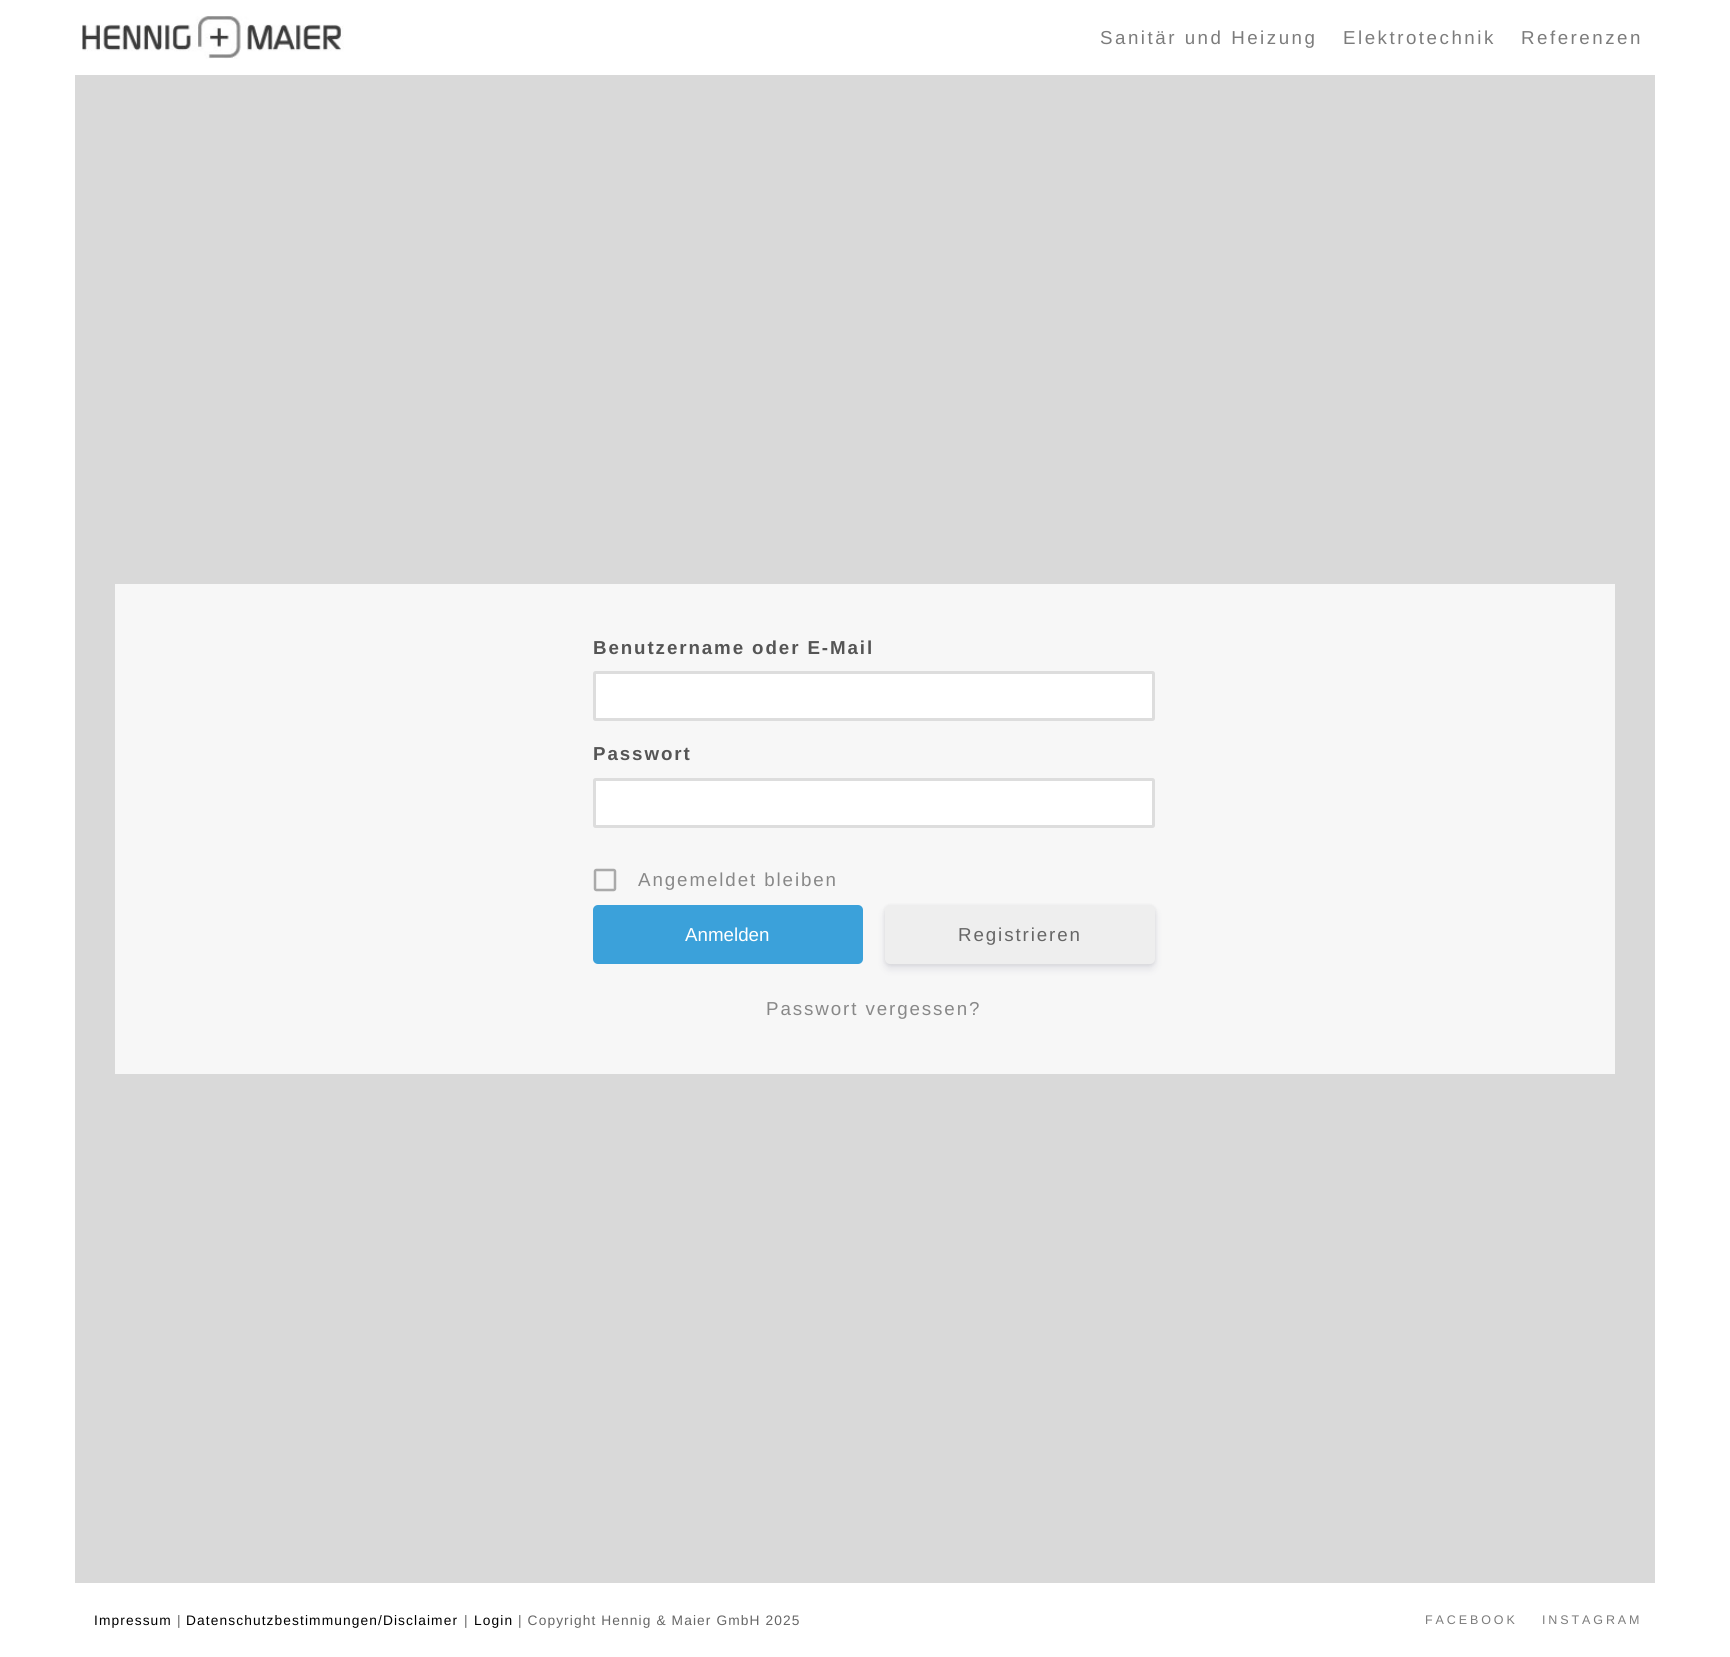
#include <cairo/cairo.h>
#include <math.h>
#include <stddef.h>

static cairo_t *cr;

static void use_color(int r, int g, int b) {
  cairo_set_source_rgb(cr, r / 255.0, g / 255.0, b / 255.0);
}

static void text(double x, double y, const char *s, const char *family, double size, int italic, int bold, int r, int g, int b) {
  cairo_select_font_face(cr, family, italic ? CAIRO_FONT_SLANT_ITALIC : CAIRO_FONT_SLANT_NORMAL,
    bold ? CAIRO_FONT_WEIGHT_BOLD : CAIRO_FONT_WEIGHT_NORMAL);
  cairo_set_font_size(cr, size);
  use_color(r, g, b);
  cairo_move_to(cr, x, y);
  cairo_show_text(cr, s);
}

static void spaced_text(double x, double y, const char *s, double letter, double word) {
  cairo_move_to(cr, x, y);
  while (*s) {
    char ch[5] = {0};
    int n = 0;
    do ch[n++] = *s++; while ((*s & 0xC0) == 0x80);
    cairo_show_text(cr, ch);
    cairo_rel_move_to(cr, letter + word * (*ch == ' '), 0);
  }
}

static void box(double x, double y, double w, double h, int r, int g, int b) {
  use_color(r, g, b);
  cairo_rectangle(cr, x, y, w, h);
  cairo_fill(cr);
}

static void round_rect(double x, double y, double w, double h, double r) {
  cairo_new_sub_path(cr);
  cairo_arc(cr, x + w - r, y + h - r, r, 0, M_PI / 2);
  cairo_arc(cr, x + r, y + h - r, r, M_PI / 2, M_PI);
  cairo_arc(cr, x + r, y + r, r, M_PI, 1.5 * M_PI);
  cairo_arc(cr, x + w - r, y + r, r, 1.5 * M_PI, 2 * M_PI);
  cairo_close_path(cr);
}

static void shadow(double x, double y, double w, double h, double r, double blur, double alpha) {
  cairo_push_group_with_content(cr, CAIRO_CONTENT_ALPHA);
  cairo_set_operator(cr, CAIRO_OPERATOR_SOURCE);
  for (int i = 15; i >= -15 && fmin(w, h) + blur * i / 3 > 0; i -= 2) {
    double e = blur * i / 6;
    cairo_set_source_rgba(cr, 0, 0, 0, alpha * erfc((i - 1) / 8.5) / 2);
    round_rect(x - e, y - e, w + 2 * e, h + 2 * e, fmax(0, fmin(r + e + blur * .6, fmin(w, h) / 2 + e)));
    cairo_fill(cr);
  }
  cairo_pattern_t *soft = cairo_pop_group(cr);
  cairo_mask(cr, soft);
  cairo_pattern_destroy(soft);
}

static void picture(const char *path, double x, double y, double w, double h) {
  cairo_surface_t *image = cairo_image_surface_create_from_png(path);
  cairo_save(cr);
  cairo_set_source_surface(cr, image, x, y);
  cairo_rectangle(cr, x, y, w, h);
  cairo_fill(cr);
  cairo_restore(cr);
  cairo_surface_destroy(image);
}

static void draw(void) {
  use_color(255, 255, 255);
  cairo_paint(cr);
  picture("img_01.png", 82, 16, 262, 43);
  box(75, 75, 1580, 1508, 217, 217, 217);
  box(115, 584, 1500, 490, 247, 247, 247);
  use_color(255, 255, 255);
  round_rect(594.5, 672.5, 559, 47, 1);
  cairo_fill_preserve(cr);
  use_color(221, 221, 221);
  cairo_set_line_width(cr, 3);
  cairo_stroke(cr);
  use_color(255, 255, 255);
  round_rect(594.5, 779.5, 559, 47, 1);
  cairo_fill_preserve(cr);
  use_color(221, 221, 221);
  cairo_stroke(cr);
  picture("img_02.png", 593, 868, 24, 24);
  use_color(59, 161, 218);
  round_rect(593, 905, 270, 59, 5);
  cairo_fill(cr);
  use_color(0, 0, 0);
  shadow(885, 906, 270, 59, 5, 2, 0.08);
  use_color(50, 50, 93);
  shadow(885, 910, 270, 59, 5, 4, 0.11);
  use_color(238, 238, 238);
  round_rect(885, 905, 270, 59, 5);
  cairo_fill(cr);
  cairo_select_font_face(cr, "Liberation Sans", CAIRO_FONT_SLANT_NORMAL, CAIRO_FONT_WEIGHT_NORMAL);
  cairo_set_font_size(cr, 18.75);
  use_color(124, 124, 124);
  spaced_text(1100, 44, "Sanitär und Heizung", 2.5, 0);
  spaced_text(1343, 44, "Elektrotechnik", 2.5, 0);
  spaced_text(1521, 44, "Referenzen", 2.5, 0);
  cairo_select_font_face(cr, "Liberation Sans", CAIRO_FONT_SLANT_NORMAL, CAIRO_FONT_WEIGHT_BOLD);
  use_color(85, 85, 85);
  spaced_text(593, 654, "Benutzername oder E-Mail", 1.9, 0);
  spaced_text(593, 760, "Passwort", 1.9, 0);
  cairo_select_font_face(cr, "Liberation Sans", CAIRO_FONT_SLANT_NORMAL, CAIRO_FONT_WEIGHT_NORMAL);
  use_color(136, 136, 136);
  spaced_text(638, 886, "Angemeldet bleiben", 1.9, 0);
  text(685, 941, "Anmelden", "Liberation Sans", 18.75, 0, 0, 255, 255, 255);
  use_color(102, 102, 102);
  spaced_text(958, 941, "Registrieren", 1.9, 0);
  use_color(136, 136, 136);
  spaced_text(766, 1015, "Passwort vergessen?", 1.9, 0);
  cairo_set_font_size(cr, 13.75);
  use_color(0, 0, 0);
  spaced_text(94, 1625, "Impressum", 1.1, 0);
  use_color(102, 102, 102);
  spaced_text(177, 1625, "|", 1.1, 0);
  use_color(0, 0, 0);
  spaced_text(186, 1625, "Datenschutzbestimmungen/Disclaimer", 1.1, 0);
  use_color(102, 102, 102);
  spaced_text(464, 1625, "|", 1.1, 0);
  use_color(0, 0, 0);
  spaced_text(474, 1625, "Login", 1.1, 0);
  use_color(102, 102, 102);
  spaced_text(518, 1625, "| Copyright Hennig & Maier GmbH 2025", 1.1, 0);
  cairo_set_font_size(cr, 12.5);
  use_color(124, 124, 124);
  spaced_text(1425, 1624, "FACEBOOK", 2.9, 0);
  spaced_text(1542, 1624, "INSTAGRAM", 2.9, 0);
}

int main(void) {
  cairo_surface_t *surface = cairo_image_surface_create(CAIRO_FORMAT_RGB24, 1730, 1657);
  cr = cairo_create(surface);
  cairo_font_options_t *options = cairo_font_options_create();
  cairo_font_options_set_hint_metrics(options, CAIRO_HINT_METRICS_OFF);
  cairo_font_options_set_hint_style(options, CAIRO_HINT_STYLE_NONE);
  cairo_set_font_options(cr, options);
  cairo_set_miter_limit(cr, 4);
  draw();
  cairo_surface_write_to_png(surface, "out.png");
  cairo_font_options_destroy(options);
  cairo_destroy(cr);
  cairo_surface_destroy(surface);
  return 0;
}
